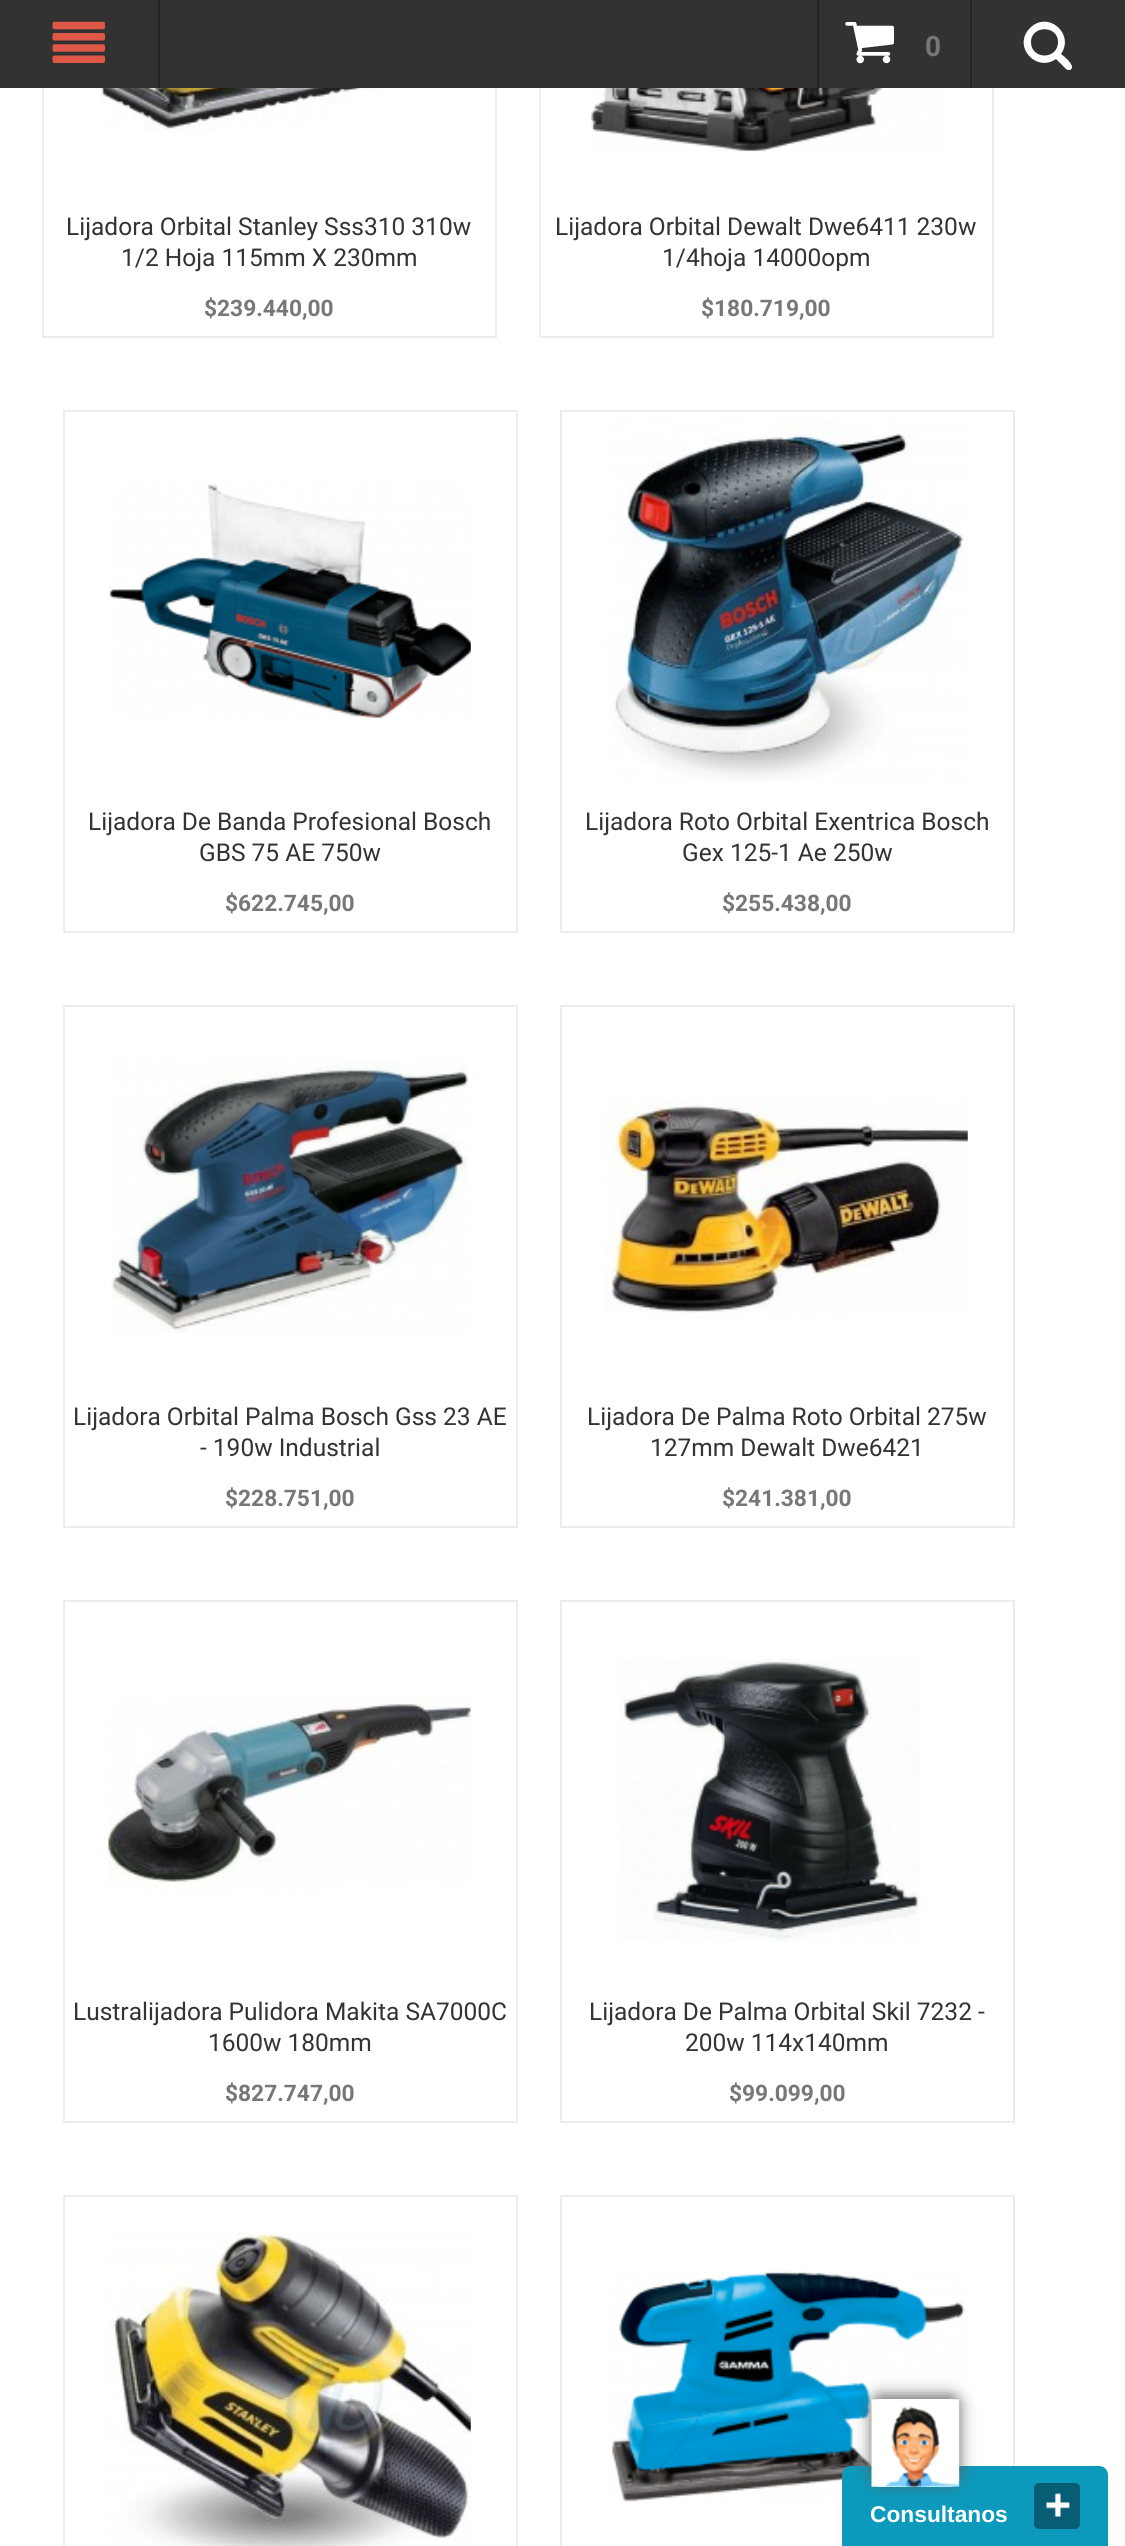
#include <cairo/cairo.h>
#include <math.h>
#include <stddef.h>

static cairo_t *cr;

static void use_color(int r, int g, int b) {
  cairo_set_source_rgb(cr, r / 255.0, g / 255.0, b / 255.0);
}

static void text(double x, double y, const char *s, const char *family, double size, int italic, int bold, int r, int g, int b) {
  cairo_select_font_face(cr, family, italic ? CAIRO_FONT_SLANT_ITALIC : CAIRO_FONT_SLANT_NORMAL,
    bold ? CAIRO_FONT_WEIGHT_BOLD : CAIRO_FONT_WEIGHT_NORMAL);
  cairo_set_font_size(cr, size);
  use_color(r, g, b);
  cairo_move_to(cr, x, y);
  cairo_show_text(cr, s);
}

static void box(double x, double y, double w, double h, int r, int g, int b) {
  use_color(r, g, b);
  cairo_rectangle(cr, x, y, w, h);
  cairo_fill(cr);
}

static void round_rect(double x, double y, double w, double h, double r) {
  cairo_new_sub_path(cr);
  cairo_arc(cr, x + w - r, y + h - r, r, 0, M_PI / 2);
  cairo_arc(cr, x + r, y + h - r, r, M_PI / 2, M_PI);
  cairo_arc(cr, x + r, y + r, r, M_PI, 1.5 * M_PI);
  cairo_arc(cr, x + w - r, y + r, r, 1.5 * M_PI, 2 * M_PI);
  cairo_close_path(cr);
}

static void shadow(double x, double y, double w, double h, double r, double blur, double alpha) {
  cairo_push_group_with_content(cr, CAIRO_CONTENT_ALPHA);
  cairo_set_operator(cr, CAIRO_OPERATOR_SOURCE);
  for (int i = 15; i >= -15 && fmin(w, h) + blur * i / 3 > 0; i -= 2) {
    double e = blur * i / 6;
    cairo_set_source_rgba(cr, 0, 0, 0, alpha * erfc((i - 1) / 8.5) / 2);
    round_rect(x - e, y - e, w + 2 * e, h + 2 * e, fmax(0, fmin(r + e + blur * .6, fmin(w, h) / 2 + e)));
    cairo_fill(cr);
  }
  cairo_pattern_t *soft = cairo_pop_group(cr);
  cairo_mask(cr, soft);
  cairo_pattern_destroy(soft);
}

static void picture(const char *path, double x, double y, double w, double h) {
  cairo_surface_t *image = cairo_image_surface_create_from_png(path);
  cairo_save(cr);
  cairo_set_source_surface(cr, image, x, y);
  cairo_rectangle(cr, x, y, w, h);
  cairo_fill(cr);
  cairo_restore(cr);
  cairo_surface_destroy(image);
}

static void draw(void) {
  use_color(255, 255, 255);
  cairo_paint(cr);
  cairo_rectangle(cr, 43, -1, 453, 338);
  use_color(237, 237, 237);
  cairo_stroke(cr);
  cairo_rectangle(cr, 540, -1, 453, 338);
  cairo_stroke(cr);
  box(0, 0, 1125, 88, 50, 50, 50);
  box(158, 0, 2, 88, 35, 35, 35);
  picture("img_01.png", 52, 21, 53, 42);
  box(970, 0, 2, 88, 35, 35, 35);
  use_color(255, 255, 255);
  cairo_new_path(cr);
  cairo_move_to(cr, 1058, 42);
  cairo_curve_to(cr, 1058, 60, 1031, 60, 1031, 42);
  cairo_curve_to(cr, 1031, 25, 1058, 25, 1058, 42);
  cairo_close_path(cr);
  cairo_move_to(cr, 1072, 67);
  cairo_curve_to(cr, 1072, 63, 1064, 56, 1061, 54);
  cairo_curve_to(cr, 1075, 34, 1048, 10, 1030, 28);
  cairo_curve_to(cr, 1012, 46, 1036, 73, 1056, 59);
  cairo_line_to(cr, 1066, 69);
  cairo_curve_to(cr, 1067, 70, 1068, 70, 1069, 70);
  cairo_curve_to(cr, 1071, 70, 1072, 69, 1072, 67);
  cairo_close_path(cr);
  cairo_fill(cr);
  box(817, 0, 2, 88, 35, 35, 35);
  picture("img_02.png", 845, 22, 49, 42);
  picture("img_03.png", 101, 88, 280, 43);
  picture("img_04.png", 591, 88, 356, 64);
  cairo_rectangle(cr, 64, 411, 453, 521);
  use_color(237, 237, 237);
  cairo_stroke(cr);
  picture("img_05.png", 109, 484, 362, 235);
  cairo_rectangle(cr, 561, 411, 453, 521);
  cairo_stroke(cr);
  picture("img_06.png", 606, 420, 362, 362);
  cairo_rectangle(cr, 64, 1006, 453, 521);
  cairo_stroke(cr);
  picture("img_07.png", 111, 1060, 357, 273);
  cairo_rectangle(cr, 561, 1006, 453, 521);
  cairo_stroke(cr);
  picture("img_08.png", 605, 1098, 363, 221);
  cairo_rectangle(cr, 64, 1601, 453, 521);
  cairo_stroke(cr);
  picture("img_09.png", 108, 1697, 363, 193);
  cairo_rectangle(cr, 561, 1601, 453, 521);
  cairo_stroke(cr);
  picture("img_10.png", 618, 1659, 303, 283);
  cairo_rectangle(cr, 64, 2196, 453, 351);
  cairo_stroke(cr);
  picture("img_11.png", 108, 2231, 363, 315);
  cairo_rectangle(cr, 561, 2196, 453, 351);
  cairo_stroke(cr);
  picture("img_12.png", 611, 2271, 354, 231);
  use_color(11, 153, 188);
  cairo_new_path(cr);
  cairo_move_to(cr, 851, 2466);
  cairo_line_to(cr, 1099, 2466);
  cairo_curve_to(cr, 1104, 2466, 1108, 2470, 1108, 2475);
  cairo_line_to(cr, 1108, 2546);
  cairo_line_to(cr, 842, 2546);
  cairo_line_to(cr, 842, 2475);
  cairo_curve_to(cr, 842, 2470, 846, 2466, 851, 2466);
  cairo_close_path(cr);
  cairo_fill(cr);
  use_color(95, 95, 94);
  shadow(872, 2396, 87, 87, 9, 8, 1);
  use_color(255, 255, 255);
  round_rect(872, 2399, 87, 88, 9);
  cairo_fill(cr);
  picture("img_13.png", 871, 2399, 89, 88);
  use_color(7, 94, 116);
  round_rect(1034, 2483, 46, 46, 5);
  cairo_fill(cr);
  picture("img_14.png", 1046, 2493, 24, 24);
  text(925, 56, "0", "Roboto", 28, 0, 1, 119, 119, 119);
  text(66, 235, "Lijadora Orbital Stanley Sss310 310w", "Roboto", 24.5, 0, 0, 51, 51, 51);
  text(121, 266, "1/2 Hoja 115mm X 230mm", "Roboto", 24.5, 0, 0, 51, 51, 51);
  text(204, 316, "$239.440,00", "Roboto", 22.75, 0, 1, 119, 119, 119);
  text(555, 235, "Lijadora Orbital Dewalt Dwe6411 230w", "Roboto", 24.5, 0, 0, 51, 51, 51);
  text(662, 266, "1/4hoja 14000opm", "Roboto", 24.5, 0, 0, 51, 51, 51);
  text(701, 316, "$180.719,00", "Roboto", 22.75, 0, 1, 119, 119, 119);
  text(88, 830, "Lijadora De Banda Profesional Bosch", "Roboto", 24.5, 0, 0, 51, 51, 51);
  text(199, 861, "GBS 75 AE 750w", "Roboto", 24.5, 0, 0, 51, 51, 51);
  text(225, 911, "$622.745,00", "Roboto", 22.75, 0, 1, 119, 119, 119);
  text(585, 830, "Lijadora Roto Orbital Exentrica Bosch", "Roboto", 24.5, 0, 0, 51, 51, 51);
  text(682, 861, "Gex 125-1 Ae 250w", "Roboto", 24.5, 0, 0, 51, 51, 51);
  text(722, 911, "$255.438,00", "Roboto", 22.75, 0, 1, 119, 119, 119);
  text(73, 1425, "Lijadora Orbital Palma Bosch Gss 23 AE", "Roboto", 24.5, 0, 0, 51, 51, 51);
  text(200, 1456, "- 190w Industrial", "Roboto", 24.5, 0, 0, 51, 51, 51);
  text(225, 1506, "$228.751,00", "Roboto", 22.75, 0, 1, 119, 119, 119);
  text(587, 1425, "Lijadora De Palma Roto Orbital 275w", "Roboto", 24.5, 0, 0, 51, 51, 51);
  text(650, 1456, "127mm Dewalt Dwe6421", "Roboto", 24.5, 0, 0, 51, 51, 51);
  text(722, 1506, "$241.381,00", "Roboto", 22.75, 0, 1, 119, 119, 119);
  text(73, 2020, "Lustralijadora Pulidora Makita SA7000C", "Roboto", 24.5, 0, 0, 51, 51, 51);
  text(208, 2051, "1600w 180mm", "Roboto", 24.5, 0, 0, 51, 51, 51);
  text(225, 2101, "$827.747,00", "Roboto", 22.75, 0, 1, 119, 119, 119);
  text(589, 2020, "Lijadora De Palma Orbital Skil 7232 -", "Roboto", 24.5, 0, 0, 51, 51, 51);
  text(685, 2051, "200w 114x140mm", "Roboto", 24.5, 0, 0, 51, 51, 51);
  text(729, 2101, "$99.099,00", "Roboto", 22.75, 0, 1, 119, 119, 119);
  text(870, 2522, "Consultanos", "Liberation Sans", 22.75, 0, 1, 255, 255, 255);
}

int main(void) {
  cairo_surface_t *surface = cairo_image_surface_create(CAIRO_FORMAT_RGB24, 1125, 2546);
  cr = cairo_create(surface);
  cairo_font_options_t *options = cairo_font_options_create();
  cairo_font_options_set_hint_metrics(options, CAIRO_HINT_METRICS_OFF);
  cairo_font_options_set_hint_style(options, CAIRO_HINT_STYLE_NONE);
  cairo_set_font_options(cr, options);
  cairo_set_miter_limit(cr, 4);
  draw();
  cairo_surface_write_to_png(surface, "out.png");
  cairo_font_options_destroy(options);
  cairo_destroy(cr);
  cairo_surface_destroy(surface);
  return 0;
}
